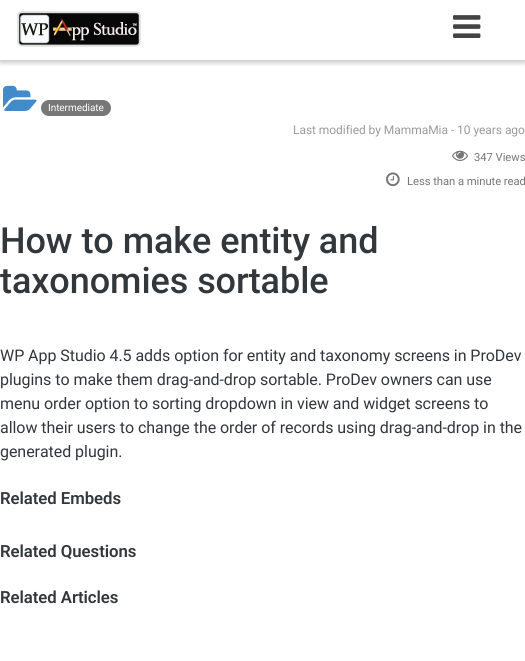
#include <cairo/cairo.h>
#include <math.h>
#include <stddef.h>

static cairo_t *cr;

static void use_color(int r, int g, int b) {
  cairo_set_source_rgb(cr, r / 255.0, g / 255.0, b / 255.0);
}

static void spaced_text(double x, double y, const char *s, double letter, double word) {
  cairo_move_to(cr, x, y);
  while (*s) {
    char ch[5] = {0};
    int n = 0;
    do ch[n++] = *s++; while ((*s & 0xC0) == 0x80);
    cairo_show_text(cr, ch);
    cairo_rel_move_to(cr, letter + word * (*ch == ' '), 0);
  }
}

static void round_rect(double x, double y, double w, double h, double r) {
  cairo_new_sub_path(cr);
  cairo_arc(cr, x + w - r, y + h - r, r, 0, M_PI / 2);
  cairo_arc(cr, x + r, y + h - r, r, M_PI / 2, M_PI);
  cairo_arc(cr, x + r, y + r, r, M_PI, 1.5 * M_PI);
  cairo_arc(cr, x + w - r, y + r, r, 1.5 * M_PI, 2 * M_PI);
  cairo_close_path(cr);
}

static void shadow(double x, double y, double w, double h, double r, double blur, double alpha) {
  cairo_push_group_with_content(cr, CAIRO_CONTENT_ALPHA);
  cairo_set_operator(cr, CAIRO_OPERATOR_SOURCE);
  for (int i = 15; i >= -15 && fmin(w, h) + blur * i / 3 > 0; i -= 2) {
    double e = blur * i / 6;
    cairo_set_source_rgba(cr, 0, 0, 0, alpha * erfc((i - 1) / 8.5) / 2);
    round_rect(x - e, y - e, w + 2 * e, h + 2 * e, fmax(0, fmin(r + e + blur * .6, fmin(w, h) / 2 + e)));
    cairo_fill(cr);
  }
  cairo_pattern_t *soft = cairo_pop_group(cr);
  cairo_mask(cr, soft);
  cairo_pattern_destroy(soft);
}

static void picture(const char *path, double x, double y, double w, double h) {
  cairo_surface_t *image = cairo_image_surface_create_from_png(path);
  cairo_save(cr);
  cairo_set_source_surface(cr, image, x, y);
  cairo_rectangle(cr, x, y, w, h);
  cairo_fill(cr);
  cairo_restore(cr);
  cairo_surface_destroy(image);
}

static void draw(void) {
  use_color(255, 255, 255);
  cairo_paint(cr);
  cairo_save(cr);
  cairo_rectangle(cr, 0, 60, 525, 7);
  cairo_clip(cr);
  use_color(0, 0, 0);
  shadow(0, 2, 525, 60, 0, 5, 0.12);
  cairo_restore(cr);
  cairo_save(cr);
  cairo_rectangle(cr, 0, 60, 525, 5);
  cairo_clip(cr);
  use_color(0, 0, 0);
  shadow(0, 2, 525, 60, 0, 2.5, 0.16);
  cairo_restore(cr);
  picture("img_01.png", 17, 11, 124, 36);
  picture("img_02.png", 453, 15, 28, 23);
  picture("img_03.png", 3, 85, 34, 26);
  use_color(119, 119, 119);
  round_rect(41, 100, 70, 16, 8);
  cairo_fill(cr);
  picture("img_04.png", 452, 150, 16, 11);
  picture("img_05.png", 386, 172, 14, 15);
  cairo_select_font_face(cr, "Roboto", CAIRO_FONT_SLANT_NORMAL, CAIRO_FONT_WEIGHT_NORMAL);
  cairo_set_font_size(cr, 10);
  use_color(255, 255, 255);
  spaced_text(48, 111, "Intermediate", -0.05, 0);
  cairo_set_font_size(cr, 12);
  use_color(155, 155, 155);
  spaced_text(293, 134, "Last modified by MammaMia - 10 years ago", -0.05, 0);
  cairo_set_font_size(cr, 11.25);
  use_color(119, 119, 119);
  spaced_text(474, 161, "347 Views", -0.05, 0);
  spaced_text(407, 185, "Less than a minute read", -0.05, 0);
  cairo_select_font_face(cr, "Roboto Medium", CAIRO_FONT_SLANT_NORMAL, CAIRO_FONT_WEIGHT_NORMAL);
  cairo_set_font_size(cr, 36);
  use_color(50, 55, 60);
  spaced_text(0, 253, "How to make entity and", -0.05, 0);
  spaced_text(0, 293, "taxonomies sortable", -0.05, 0);
  cairo_select_font_face(cr, "Roboto", CAIRO_FONT_SLANT_NORMAL, CAIRO_FONT_WEIGHT_NORMAL);
  cairo_set_font_size(cr, 16);
  spaced_text(0, 361, "WP App Studio 4.5 adds option for entity and taxonomy screens in ProDev", -0.05, 0);
  spaced_text(0, 385, "plugins to make them drag-and-drop sortable. ProDev owners can use", -0.05, 0);
  spaced_text(0, 409, "menu order option to sorting dropdown in view and widget screens to", -0.05, 0);
  spaced_text(0, 433, "allow their users to change the order of records using drag-and-drop in the", -0.05, 0);
  spaced_text(0, 457, "generated plugin.", -0.05, 0);
  cairo_select_font_face(cr, "Roboto SemiBold", CAIRO_FONT_SLANT_NORMAL, CAIRO_FONT_WEIGHT_NORMAL);
  cairo_set_font_size(cr, 16.75);
  spaced_text(0, 504, "Related Embeds", -0.05, 0);
  spaced_text(0, 557, "Related Questions", -0.05, 0);
  spaced_text(0, 603, "Related Articles", -0.05, 0);
}

int main(void) {
  cairo_surface_t *surface = cairo_image_surface_create(CAIRO_FORMAT_RGB24, 525, 661);
  cr = cairo_create(surface);
  cairo_font_options_t *options = cairo_font_options_create();
  cairo_font_options_set_hint_metrics(options, CAIRO_HINT_METRICS_OFF);
  cairo_font_options_set_hint_style(options, CAIRO_HINT_STYLE_NONE);
  cairo_set_font_options(cr, options);
  cairo_set_miter_limit(cr, 4);
  draw();
  cairo_surface_write_to_png(surface, "out.png");
  cairo_font_options_destroy(options);
  cairo_destroy(cr);
  cairo_surface_destroy(surface);
  return 0;
}
